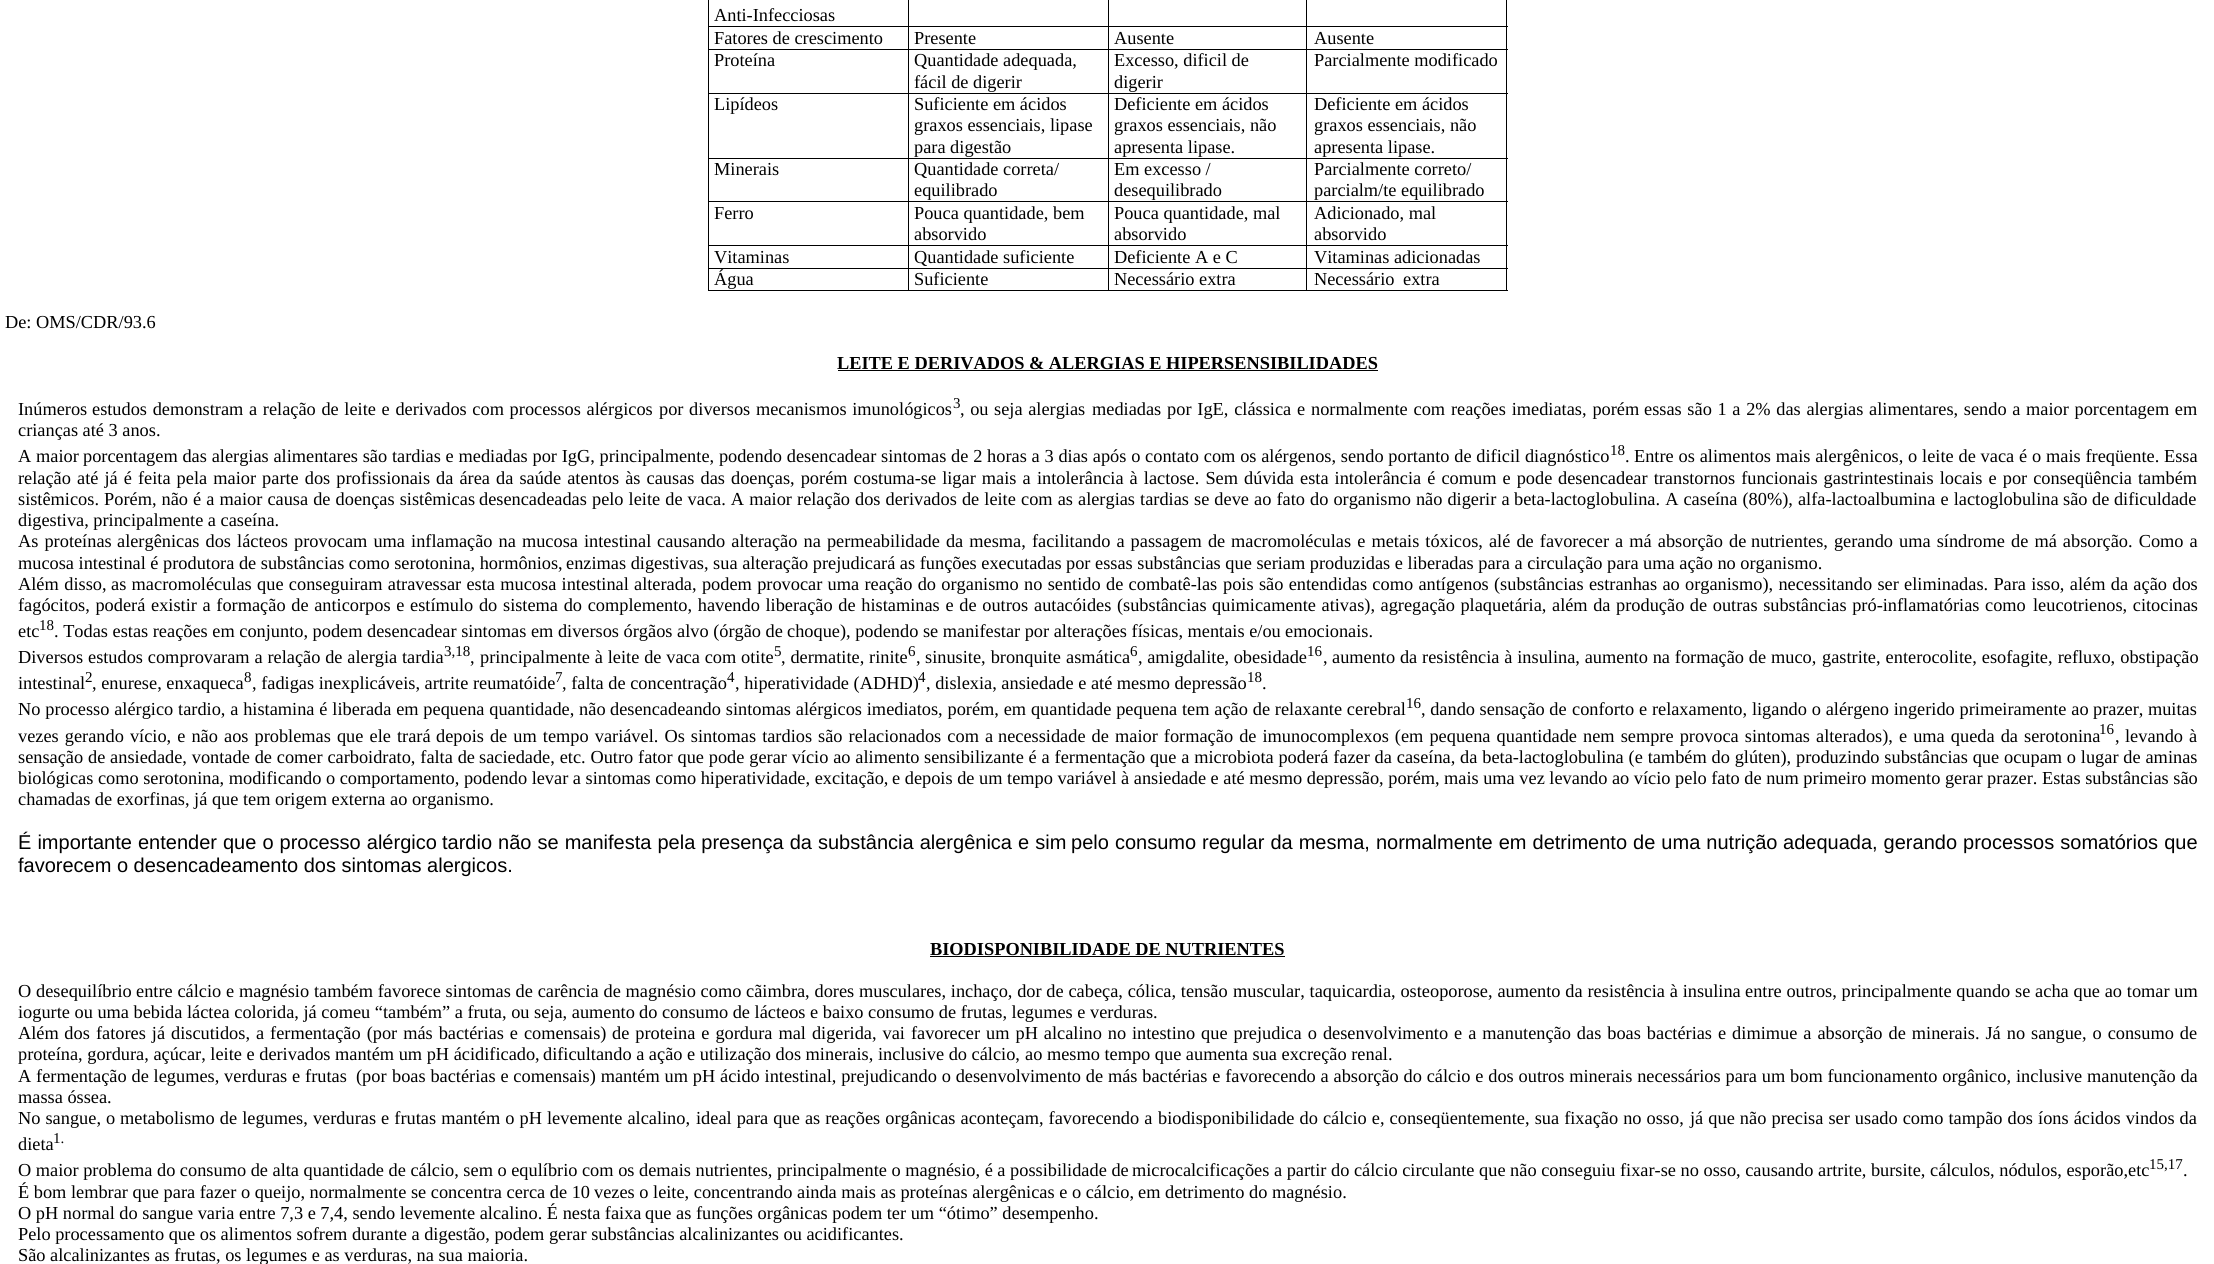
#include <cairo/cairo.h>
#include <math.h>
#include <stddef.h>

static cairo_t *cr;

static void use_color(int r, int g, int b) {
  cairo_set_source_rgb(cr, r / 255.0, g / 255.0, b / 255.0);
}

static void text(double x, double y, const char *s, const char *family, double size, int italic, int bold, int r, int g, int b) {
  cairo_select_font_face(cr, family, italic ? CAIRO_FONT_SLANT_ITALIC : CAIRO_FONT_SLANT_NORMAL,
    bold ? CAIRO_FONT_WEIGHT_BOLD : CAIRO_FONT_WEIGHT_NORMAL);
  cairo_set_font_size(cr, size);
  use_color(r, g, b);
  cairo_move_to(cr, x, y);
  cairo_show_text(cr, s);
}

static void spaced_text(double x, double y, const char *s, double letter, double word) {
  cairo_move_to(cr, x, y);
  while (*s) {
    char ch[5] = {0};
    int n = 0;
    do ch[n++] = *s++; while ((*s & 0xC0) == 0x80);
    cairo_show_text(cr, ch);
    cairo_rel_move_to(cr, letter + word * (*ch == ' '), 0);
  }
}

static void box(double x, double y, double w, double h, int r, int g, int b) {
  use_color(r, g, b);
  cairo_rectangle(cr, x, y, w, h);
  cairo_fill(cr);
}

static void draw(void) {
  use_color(255, 255, 255);
  cairo_paint(cr);
  box(1506, 0, 1, 291, 0, 0, 0);
  box(1306, 290, 202, 1, 0, 0, 0);
  box(1306, 268, 1, 23, 0, 0, 0);
  box(1306, 268, 202, 1, 0, 0, 0);
  box(1306, 245, 1, 24, 0, 0, 0);
  box(1306, 245, 202, 1, 0, 0, 0);
  box(1306, 201, 1, 45, 0, 0, 0);
  box(1306, 201, 202, 1, 0, 0, 0);
  box(1306, 158, 1, 45, 0, 0, 0);
  box(1306, 158, 202, 1, 0, 0, 0);
  box(1306, 93, 1, 66, 0, 0, 0);
  box(1306, 93, 202, 1, 0, 0, 0);
  box(1306, 49, 1, 45, 0, 0, 0);
  box(1306, 49, 202, 1, 0, 0, 0);
  box(1306, 26, 1, 24, 0, 0, 0);
  box(1306, 26, 202, 1, 0, 0, 0);
  box(1306, 0, 1, 28, 0, 0, 0);
  box(1108, 290, 200, 1, 0, 0, 0);
  box(1108, 268, 1, 23, 0, 0, 0);
  box(1108, 268, 200, 1, 0, 0, 0);
  box(1108, 245, 1, 24, 0, 0, 0);
  box(1108, 245, 200, 1, 0, 0, 0);
  box(1108, 201, 1, 45, 0, 0, 0);
  box(1108, 201, 200, 1, 0, 0, 0);
  box(1108, 158, 1, 45, 0, 0, 0);
  box(1108, 158, 200, 1, 0, 0, 0);
  box(1108, 93, 1, 66, 0, 0, 0);
  box(1108, 93, 200, 1, 0, 0, 0);
  box(1108, 49, 1, 45, 0, 0, 0);
  box(1108, 49, 200, 1, 0, 0, 0);
  box(1108, 26, 1, 24, 0, 0, 0);
  box(1108, 26, 200, 1, 0, 0, 0);
  box(1108, 0, 1, 28, 0, 0, 0);
  box(908, 290, 201, 1, 0, 0, 0);
  box(908, 268, 1, 23, 0, 0, 0);
  box(908, 268, 201, 1, 0, 0, 0);
  box(908, 245, 1, 24, 0, 0, 0);
  box(908, 245, 201, 1, 0, 0, 0);
  box(908, 201, 1, 45, 0, 0, 0);
  box(908, 201, 201, 1, 0, 0, 0);
  box(908, 158, 1, 45, 0, 0, 0);
  box(908, 158, 201, 1, 0, 0, 0);
  box(908, 93, 1, 66, 0, 0, 0);
  box(908, 93, 201, 1, 0, 0, 0);
  box(908, 49, 1, 45, 0, 0, 0);
  box(908, 49, 201, 1, 0, 0, 0);
  box(908, 26, 1, 24, 0, 0, 0);
  box(908, 26, 201, 1, 0, 0, 0);
  box(908, 0, 1, 28, 0, 0, 0);
  box(708, 290, 201, 1, 0, 0, 0);
  box(708, 268, 1, 23, 0, 0, 0);
  box(708, 268, 201, 1, 0, 0, 0);
  box(708, 245, 1, 24, 0, 0, 0);
  box(708, 245, 201, 1, 0, 0, 0);
  box(708, 201, 1, 45, 0, 0, 0);
  box(708, 201, 201, 1, 0, 0, 0);
  box(708, 158, 1, 45, 0, 0, 0);
  box(708, 158, 201, 1, 0, 0, 0);
  box(708, 93, 1, 66, 0, 0, 0);
  box(708, 93, 201, 1, 0, 0, 0);
  box(708, 49, 1, 45, 0, 0, 0);
  box(708, 49, 201, 1, 0, 0, 0);
  box(708, 26, 1, 24, 0, 0, 0);
  box(708, 26, 201, 1, 0, 0, 0);
  box(708, 0, 1, 28, 0, 0, 0);
  box(838, 370, 540, 1, 0, 0, 0);
  box(930, 956, 355, 1, 0, 0, 0);
  text(714, 21, "Anti-Infecciosas", "Liberation Serif", 18.33, 0, 0, 0, 0, 0);
  text(714, 44, "Fatores de crescimento", "Liberation Serif", 18.33, 0, 0, 0, 0, 0);
  text(914, 44, "Presente", "Liberation Serif", 18.33, 0, 0, 0, 0, 0);
  text(1114, 44, "Ausente", "Liberation Serif", 18.33, 0, 0, 0, 0, 0);
  text(1314, 44, "Ausente", "Liberation Serif", 18.33, 0, 0, 0, 0, 0);
  text(714, 66, "Proteína", "Liberation Serif", 18.33, 0, 0, 0, 0, 0);
  text(914, 66, "Quantidade adequada,", "Liberation Serif", 18.33, 0, 0, 0, 0, 0);
  text(914, 88, "fácil de digerir", "Liberation Serif", 18.33, 0, 0, 0, 0, 0);
  text(1114, 66, "Excesso, dificil de", "Liberation Serif", 18.33, 0, 0, 0, 0, 0);
  text(1114, 88, "digerir", "Liberation Serif", 18.33, 0, 0, 0, 0, 0);
  text(1314, 66, "Parcialmente modificado", "Liberation Serif", 18.33, 0, 0, 0, 0, 0);
  text(714, 110, "Lipídeos", "Liberation Serif", 18.33, 0, 0, 0, 0, 0);
  text(914, 110, "Suficiente em ácidos", "Liberation Serif", 18.33, 0, 0, 0, 0, 0);
  text(914, 131, "graxos essenciais, lipase", "Liberation Serif", 18.33, 0, 0, 0, 0, 0);
  text(914, 153, "para digestão", "Liberation Serif", 18.33, 0, 0, 0, 0, 0);
  text(1114, 110, "Deficiente em ácidos", "Liberation Serif", 18.33, 0, 0, 0, 0, 0);
  text(1114, 131, "graxos essenciais, não", "Liberation Serif", 18.33, 0, 0, 0, 0, 0);
  text(1114, 153, "apresenta lipase.", "Liberation Serif", 18.33, 0, 0, 0, 0, 0);
  text(1314, 110, "Deficiente em ácidos", "Liberation Serif", 18.33, 0, 0, 0, 0, 0);
  text(1314, 131, "graxos essenciais, não", "Liberation Serif", 18.33, 0, 0, 0, 0, 0);
  text(1314, 153, "apresenta lipase.", "Liberation Serif", 18.33, 0, 0, 0, 0, 0);
  text(714, 175, "Minerais", "Liberation Serif", 18.33, 0, 0, 0, 0, 0);
  text(914, 175, "Quantidade correta/", "Liberation Serif", 18.33, 0, 0, 0, 0, 0);
  text(914, 196, "equilibrado", "Liberation Serif", 18.33, 0, 0, 0, 0, 0);
  text(1114, 175, "Em excesso /", "Liberation Serif", 18.33, 0, 0, 0, 0, 0);
  text(1114, 196, "desequilibrado", "Liberation Serif", 18.33, 0, 0, 0, 0, 0);
  text(1314, 175, "Parcialmente correto/", "Liberation Serif", 18.33, 0, 0, 0, 0, 0);
  text(1314, 196, "parcialm/te equilibrado", "Liberation Serif", 18.33, 0, 0, 0, 0, 0);
  text(714, 219, "Ferro", "Liberation Serif", 18.33, 0, 0, 0, 0, 0);
  text(914, 219, "Pouca quantidade, bem", "Liberation Serif", 18.33, 0, 0, 0, 0, 0);
  text(914, 240, "absorvido", "Liberation Serif", 18.33, 0, 0, 0, 0, 0);
  text(1114, 219, "Pouca quantidade, mal", "Liberation Serif", 18.33, 0, 0, 0, 0, 0);
  text(1114, 240, "absorvido", "Liberation Serif", 18.33, 0, 0, 0, 0, 0);
  text(1314, 219, "Adicionado, mal", "Liberation Serif", 18.33, 0, 0, 0, 0, 0);
  text(1314, 240, "absorvido", "Liberation Serif", 18.33, 0, 0, 0, 0, 0);
  text(714, 263, "Vitaminas", "Liberation Serif", 18.33, 0, 0, 0, 0, 0);
  text(914, 263, "Quantidade suficiente", "Liberation Serif", 18.33, 0, 0, 0, 0, 0);
  text(1114, 263, "Deficiente A e C", "Liberation Serif", 18.33, 0, 0, 0, 0, 0);
  text(1314, 263, "Vitaminas adicionadas", "Liberation Serif", 18.33, 0, 0, 0, 0, 0);
  text(714, 285, "Água", "Liberation Serif", 18.33, 0, 0, 0, 0, 0);
  text(914, 285, "Suficiente", "Liberation Serif", 18.33, 0, 0, 0, 0, 0);
  text(1114, 285, "Necessário extra", "Liberation Serif", 18.33, 0, 0, 0, 0, 0);
  text(1314, 285, "Necessário", "Liberation Serif", 18.33, 0, 0, 0, 0, 0);
  text(1403, 285, "extra", "Liberation Serif", 18.33, 0, 0, 0, 0, 0);
  text(5, 328, "De: OMS/CDR/93.6", "Liberation Serif", 18.33, 0, 0, 0, 0, 0);
  text(837, 369, "LEITE E DERIVADOS & ALERGIAS E HIPERSENSIBILIDADES", "Liberation Serif", 18.33, 0, 1, 0, 0, 0);
  text(18, 415, "Inúmeros", "Liberation Serif", 18.33, 0, 0, 0, 0, 0);
  spaced_text(92, 415, "estudos demonstram a relação de leite e derivados com processos alérgicos", 0, 1.1);
  spaced_text(659, 415, "por diversos mecanismos imunológicos", 0, 1.1);
  text(953, 408, "3", "Liberation Serif", 15, 0, 0, 0, 0, 0);
  cairo_set_font_size(cr, 18.33);
  spaced_text(960, 415, ", ou seja alergias", 0, 1);
  spaced_text(1092, 415, "mediadas por IgE, clássica e normalmente com reações imediatas, porém", 0, 1.25);
  spaced_text(1644, 415, "essas são 1 a 2% das alergias alimentares, sendo a maior porcentagem em", 0, 1.1);
  text(18, 436, "crianças até 3 anos.", "Liberation Serif", 18.33, 0, 0, 0, 0, 0);
  spaced_text(18, 462, "A maior", 0, 0.25);
  spaced_text(83, 462, "porcentagem das alergias alimentares são tardias e mediadas por IgG, principalmente, podendo desencadear sintomas de 2 horas a 3 dias após o contato com os alérgenos, sendo portanto de dificil diagnóstico", 0, 0.2);
  text(1610, 455, "18", "Liberation Serif", 15, 0, 0, 0, 0, 0);
  text(1625, 462, ".", "Liberation Serif", 18.33, 0, 0, 0, 0, 0);
  spaced_text(1634, 462, "Entre os alimentos mais alergênicos, o leite de vaca é o mais freqüente.", 0, 0.25);
  text(2164, 462, "Essa", "Liberation Serif", 18.33, 0, 0, 0, 0, 0);
  spaced_text(18, 484, "relação até já é feita pela maior parte dos profissionais da área", 0, 1.5);
  spaced_text(496, 484, "da saúde atentos às causas das doenças, porém costuma-se ligar mais a", 0, 1.5);
  spaced_text(1037, 484, "intolerância à lactose. Sem dúvida esta intolerância é comum e pode", 0, 1.5);
  spaced_text(1558, 484, "desencadear transtornos funcionais gastrintestinais locais e por conseqüência", 0, 1.5);
  text(2138, 484, "também", "Liberation Serif", 18.33, 0, 0, 0, 0, 0);
  spaced_text(18, 505, "sistêmicos. Porém, não é a maior causa de doenças sistêmicas", 0, 0.5);
  spaced_text(479, 505, "desencadeadas pelo leite de vaca. A maior relação dos derivados de leite", 0, 0.5);
  spaced_text(1021, 505, "com as alergias tardias se deve ao fato do organismo não digerir a", 0, 0.5);
  spaced_text(1514, 505, "beta-lactoglobulina. A caseína (80%), alfa-lactoalbumina e lactoglobulina", 0, 0.5);
  text(2063, 505, "são de dificuldade", "Liberation Serif", 18.33, 0, 0, 0, 0, 0);
  text(18, 526, "digestiva, principalmente a caseína.", "Liberation Serif", 18.33, 0, 0, 0, 0, 0);
  spaced_text(18, 547, "As proteínas", 0, 1.5);
  spaced_text(117, 547, "alergênicas dos lácteos provocam uma inflamação na mucosa intestinal", 0, 1.5);
  spaced_text(657, 547, "causando alteração na permeabilidade da mesma, facilitando a passagem de", 0, 1.5);
  spaced_text(1231, 547, "macromoléculas e metais tóxicos, alé de favorecer a má absorção de", 0, 1.5);
  spaced_text(1751, 547, "nutrientes, gerando uma síndrome de má absorção. Como a", 0, 1.5);
  text(18, 569, "mucosa intestinal é produtora de substâncias como serotonina, hormônios,", "Liberation Serif", 18.33, 0, 0, 0, 0, 0);
  text(566, 569, "enzimas digestivas, sua alteração prejudicará as funções executadas", "Liberation Serif", 18.33, 0, 0, 0, 0, 0);
  text(1066, 569, "por essas substâncias que seriam produzidas e liberadas para a circulação", "Liberation Serif", 18.33, 0, 0, 0, 0, 0);
  text(1607, 569, "para uma ação no organismo.", "Liberation Serif", 18.33, 0, 0, 0, 0, 0);
  spaced_text(18, 590, "Além disso,", 0, 1);
  spaced_text(111, 590, "as macromoléculas que conseguiram atravessar esta mucosa intestinal", 0, 0.75);
  spaced_text(634, 590, "alterada, podem provocar uma reação do organismo no sentido de combatê-las", 0, 0.75);
  spaced_text(1223, 590, "pois são entendidas como antígenos (substâncias estranhas ao", 0, 0.75);
  spaced_text(1685, 590, "organismo), necessitando ser eliminadas. Para isso, além da ação dos", 0, 0.75);
  spaced_text(18, 611, "fagócitos, poderá existir a formação de anticorpos e estímulo do", 0, 1.1);
  spaced_text(503, 611, "sistema do complemento, havendo liberação de histaminas e de outros", 0, 1.1);
  spaced_text(1034, 611, "autacóides (substâncias quimicamente ativas), agregação plaquetária,", 0, 1);
  spaced_text(1552, 611, "além da produção de outras substâncias pró-inflamatórias como", 0, 1);
  spaced_text(2033, 611, "leucotrienos, citocinas", 0, 1);
  text(18, 637, "etc", "Liberation Serif", 18.33, 0, 0, 0, 0, 0);
  text(39, 630, "18", "Liberation Serif", 15, 0, 0, 0, 0, 0);
  text(54, 637, ". Todas estas reações em conjunto, podem desencadear sintomas em diversos órgãos alvo (órgão de", "Liberation Serif", 18.33, 0, 0, 0, 0, 0);
  text(787, 637, "choque), podendo se manifestar por alterações físicas, mentais e/ou", "Liberation Serif", 18.33, 0, 0, 0, 0, 0);
  text(1285, 637, "emocionais.", "Liberation Serif", 18.33, 0, 0, 0, 0, 0);
  text(18, 663, "Diversos", "Liberation Serif", 18.33, 0, 0, 0, 0, 0);
  spaced_text(88, 663, "estudos comprovaram a relação de alergia tardia", 0, 0.25);
  text(444, 656, "3,18", "Liberation Serif", 15, 0, 0, 0, 0, 0);
  text(470, 663, ",", "Liberation Serif", 18.33, 0, 0, 0, 0, 0);
  spaced_text(480, 663, "principalmente à leite de vaca com otite", 0, 0.25);
  text(774, 656, "5", "Liberation Serif", 15, 0, 0, 0, 0, 0);
  cairo_set_font_size(cr, 18.33);
  spaced_text(781, 663, ", dermatite, rinite", 0, 0.25);
  text(908, 656, "6", "Liberation Serif", 15, 0, 0, 0, 0, 0);
  text(916, 663, ",", "Liberation Serif", 18.33, 0, 0, 0, 0, 0);
  spaced_text(925, 663, "sinusite, bronquite asmática", 0, 0.5);
  text(1130, 656, "6", "Liberation Serif", 15, 0, 0, 0, 0, 0);
  text(1138, 663, ", amigdalite, obesidade", "Liberation Serif", 18.33, 0, 0, 0, 0, 0);
  text(1307, 656, "16", "Liberation Serif", 15, 0, 0, 0, 0, 0);
  text(1323, 663, ",", "Liberation Serif", 18.33, 0, 0, 0, 0, 0);
  spaced_text(1332, 663, "aumento da resistência à insulina, aumento na formação de muco,", 0, 0.25);
  spaced_text(1822, 663, "gastrite, enterocolite, esofagite, refluxo, obstipação", 0, 0.5);
  text(18, 689, "intestinal", "Liberation Serif", 18.33, 0, 0, 0, 0, 0);
  text(85, 682, "2", "Liberation Serif", 15, 0, 0, 0, 0, 0);
  text(92, 689, ", enurese, enxaqueca", "Liberation Serif", 18.33, 0, 0, 0, 0, 0);
  text(244, 682, "8", "Liberation Serif", 15, 0, 0, 0, 0, 0);
  text(252, 689, ", fadigas inexplicáveis, artrite reumatóide", "Liberation Serif", 18.33, 0, 0, 0, 0, 0);
  text(555, 682, "7", "Liberation Serif", 15, 0, 0, 0, 0, 0);
  text(562, 689, ", falta de concentração", "Liberation Serif", 18.33, 0, 0, 0, 0, 0);
  text(727, 682, "4", "Liberation Serif", 15, 0, 0, 0, 0, 0);
  text(735, 689, ", hiperatividade (ADHD)", "Liberation Serif", 18.33, 0, 0, 0, 0, 0);
  text(918, 682, "4", "Liberation Serif", 15, 0, 0, 0, 0, 0);
  text(926, 689, ", dislexia, ansiedade e até mesmo depressão", "Liberation Serif", 18.33, 0, 0, 0, 0, 0);
  text(1247, 682, "18", "Liberation Serif", 15, 0, 0, 0, 0, 0);
  text(1262, 689, ".", "Liberation Serif", 18.33, 0, 0, 0, 0, 0);
  spaced_text(18, 715, "No processo alérgico tardio, a histamina é liberada em pequena quantidade, não", 0, 0.25);
  spaced_text(610, 715, "desencadeando sintomas alérgicos imediatos, porém, em quantidade pequena", 0, 0.25);
  spaced_text(1182, 715, "tem ação de relaxante cerebral", 0, 0.25);
  text(1406, 708, "16", "Liberation Serif", 15, 0, 0, 0, 0, 0);
  text(1421, 715, ", dando sensação de", "Liberation Serif", 18.33, 0, 0, 0, 0, 0);
  spaced_text(1572, 715, "conforto e relaxamento, ligando o alérgeno ingerido primeiramente ao", 0, 0.25);
  text(2093, 715, "prazer, muitas", "Liberation Serif", 18.33, 0, 0, 0, 0, 0);
  spaced_text(18, 742, "vezes gerando vício, e não aos problemas que ele trará", 0, 1.5);
  spaced_text(436, 742, "depois de um tempo variável. Os sintomas tardios são relacionados com a", 0, 1.5);
  spaced_text(998, 742, "necessidade de maior formação de imunocomplexos (em pequena quantidade", 0, 1.5);
  spaced_text(1583, 742, "nem sempre provoca sintomas alterados), e uma queda da serotonina", 0, 1.5);
  text(2099, 734, "16", "Liberation Serif", 15, 0, 0, 0, 0, 0);
  text(2115, 742, ",", "Liberation Serif", 18.33, 0, 0, 0, 0, 0);
  spaced_text(2125, 742, "levando à", 0, 1.5);
  spaced_text(18, 763, "sensação de ansiedade, vontade de comer carboidrato, falta de", 0, 0.25);
  spaced_text(479, 763, "saciedade, etc. Outro fator que pode gerar vício ao alimento", 0, 0.25);
  spaced_text(924, 763, "sensibilizante é a fermentação que a microbiota poderá fazer da caseína, da beta-lactoglobulina (e também do glúten), produzindo substâncias que", 0, 0.25);
  spaced_text(2004, 763, "ocupam o lugar de aminas", 0, 0.25);
  text(18, 784, "biológicas como serotonina, modificando o comportamento, podendo levar a sintomas como hiperatividade, excitação,", "Liberation Serif", 18.33, 0, 0, 0, 0, 0);
  text(892, 784, "e depois de um tempo variável à ansiedade e até mesmo depressão, porém,", "Liberation Serif", 18.33, 0, 0, 0, 0, 0);
  text(1444, 784, "mais uma vez levando ao vício pelo fato de num primeiro momento gerar", "Liberation Serif", 18.33, 0, 0, 0, 0, 0);
  text(1987, 784, "prazer. Estas substâncias são", "Liberation Serif", 18.33, 0, 0, 0, 0, 0);
  text(18, 805, "chamadas de exorfinas, já que tem origem externa ao organismo.", "Liberation Serif", 18.33, 0, 0, 0, 0, 0);
  cairo_select_font_face(cr, "Liberation Sans", CAIRO_FONT_SLANT_NORMAL, CAIRO_FONT_WEIGHT_NORMAL);
  cairo_set_font_size(cr, 20);
  spaced_text(18, 849, "É importante entender que o processo alérgico", 0, 0.5);
  spaced_text(442, 849, "tardio não se manifesta pela presença da substância alergênica e sim", 0, 0.5);
  spaced_text(1071, 849, "pelo consumo regular da mesma, normalmente em detrimento de uma nutrição", 0, 0.5);
  spaced_text(1783, 849, "adequada, gerando processos somatórios que", 0, 0.5);
  text(18, 872, "favorecem o desencadeamento dos sintomas alergicos.", "Liberation Sans", 20, 0, 0, 0, 0, 0);
  text(930, 955, "BIODISPONIBILIDADE DE NUTRIENTES", "Liberation Serif", 18.33, 0, 1, 0, 0, 0);
  cairo_select_font_face(cr, "Liberation Serif", CAIRO_FONT_SLANT_NORMAL, CAIRO_FONT_WEIGHT_NORMAL);
  spaced_text(18, 997, "O desequilíbrio", 0, 0.25);
  spaced_text(136, 997, "entre cálcio e magnésio também favorece sintomas de carência de magnésio como cãimbra, dores musculares, inchaço, dor de cabeça, cólica, tensão", 0, 0.2);
  spaced_text(1233, 997, "muscular, taquicardia, osteoporose, aumento da resistência à insulina", 0, 0.25);
  spaced_text(1745, 997, "entre outros, principalmente quando se acha que ao tomar um", 0, 0.2);
  text(18, 1018, "iogurte ou uma bebida láctea colorida, já comeu “também” a fruta, ou seja, aumento", "Liberation Serif", 18.33, 0, 0, 0, 0, 0);
  text(639, 1018, "do consumo de lácteos e baixo consumo de frutas, legumes e verduras.", "Liberation Serif", 18.33, 0, 0, 0, 0, 0);
  spaced_text(18, 1039, "Além dos", 0, 1);
  spaced_text(96, 1039, "fatores já discutidos, a fermentação (por más bactérias e comensais)", 0, 1.4);
  spaced_text(612, 1039, "de proteina e gordura mal digerida, vai favorecer um pH alcalino no", 0, 1.4);
  spaced_text(1132, 1039, "intestino que prejudica o desenvolvimento e a manutenção das boas bactérias", 0, 1.4);
  spaced_text(1718, 1039, "e dimimue a absorção de minerais. Já no sangue, o consumo de", 0, 1.4);
  text(18, 1060, "proteína, gordura, açúcar, leite e derivados mantém um pH ácidificado,", "Liberation Serif", 18.33, 0, 0, 0, 0, 0);
  text(543, 1060, "dificultando a ação e utilização dos minerais, inclusive do cálcio,", "Liberation Serif", 18.33, 0, 0, 0, 0, 0);
  text(1025, 1060, "ao mesmo tempo que aumenta sua excreção renal.", "Liberation Serif", 18.33, 0, 0, 0, 0, 0);
  spaced_text(18, 1082, "A fermentação de legumes, verduras e frutas", 0, 0.25);
  text(356, 1082, "(por", "Liberation Serif", 18.33, 0, 0, 0, 0, 0);
  spaced_text(392, 1082, "boas bactérias e comensais) mantém um pH ácido intestinal, prejudicando o desenvolvimento de más bactérias e favorecendo a absorção do cálcio e dos outros minerais necessários para um bom funcionamento orgânico,", 0, 0.25);
  spaced_text(2016, 1082, "inclusive manutenção da", 0, 0.25);
  text(18, 1103, "massa óssea.", "Liberation Serif", 18.33, 0, 0, 0, 0, 0);
  spaced_text(18, 1124, "No sangue, o", 0, 0.5);
  spaced_text(120, 1124, "metabolismo de legumes, verduras e frutas mantém o pH levemente alcalino,", 0, 0.5);
  spaced_text(696, 1124, "ideal para que as reações orgânicas aconteçam, favorecendo a", 0, 0.5);
  spaced_text(1158, 1124, "biodisponibilidade do cálcio e, conseqüentemente, sua fixação no osso,", 0, 0.5);
  spaced_text(1690, 1124, "já que não precisa ser usado como tampão dos íons ácidos vindos da", 0, 0.5);
  text(18, 1150, "dieta", "Liberation Serif", 18.33, 0, 0, 0, 0, 0);
  text(53, 1143, "1.", "Liberation Serif", 15, 0, 0, 0, 0, 0);
  text(18, 1176, "O maior problema do consumo de alta quantidade de cálcio, sem o equlíbrio com os demais nutrientes, principalmente o magnésio, é a possibilidade de", "Liberation Serif", 18.33, 0, 0, 0, 0, 0);
  text(1132, 1176, "microcalcificações a partir do cálcio circulante que não conseguiu", "Liberation Serif", 18.33, 0, 0, 0, 0, 0);
  text(1620, 1176, "fixar-se no osso, causando artrite, bursite, cálculos, nódulos, esporão,etc", "Liberation Serif", 18.33, 0, 0, 0, 0, 0);
  text(2149, 1169, "15,17", "Liberation Serif", 15, 0, 0, 0, 0, 0);
  text(2183, 1176, ".", "Liberation Serif", 18.33, 0, 0, 0, 0, 0);
  text(18, 1198, "É bom lembrar que para fazer o queijo, normalmente se concentra cerca de 10", "Liberation Serif", 18.33, 0, 0, 0, 0, 0);
  text(594, 1198, "vezes o leite, concentrando ainda mais as proteínas alergênicas e o cálcio,", "Liberation Serif", 18.33, 0, 0, 0, 0, 0);
  text(1138, 1198, "em detrimento do magnésio.", "Liberation Serif", 18.33, 0, 0, 0, 0, 0);
  text(18, 1219, "O pH normal do sangue varia entre 7,3 e 7,4, sendo levemente alcalino. É nesta faixa", "Liberation Serif", 18.33, 0, 0, 0, 0, 0);
  text(645, 1219, "que as funções orgânicas podem ter um “ótimo” desempenho.", "Liberation Serif", 18.33, 0, 0, 0, 0, 0);
  text(18, 1240, "Pelo processamento que os alimentos sofrem durante a digestão, podem gerar substâncias alcalinizantes ou acidificantes.", "Liberation Serif", 18.33, 0, 0, 0, 0, 0);
  text(18, 1261, "São alcalinizantes as frutas, os legumes e as verduras, na sua maioria.", "Liberation Serif", 18.33, 0, 0, 0, 0, 0);
}

int main(void) {
  cairo_surface_t *surface = cairo_image_surface_create(CAIRO_FORMAT_RGB24, 2214, 1264);
  cr = cairo_create(surface);
  cairo_font_options_t *options = cairo_font_options_create();
  cairo_font_options_set_hint_metrics(options, CAIRO_HINT_METRICS_OFF);
  cairo_font_options_set_hint_style(options, CAIRO_HINT_STYLE_NONE);
  cairo_set_font_options(cr, options);
  cairo_set_miter_limit(cr, 4);
  draw();
  cairo_surface_write_to_png(surface, "out.png");
  cairo_font_options_destroy(options);
  cairo_destroy(cr);
  cairo_surface_destroy(surface);
  return 0;
}
